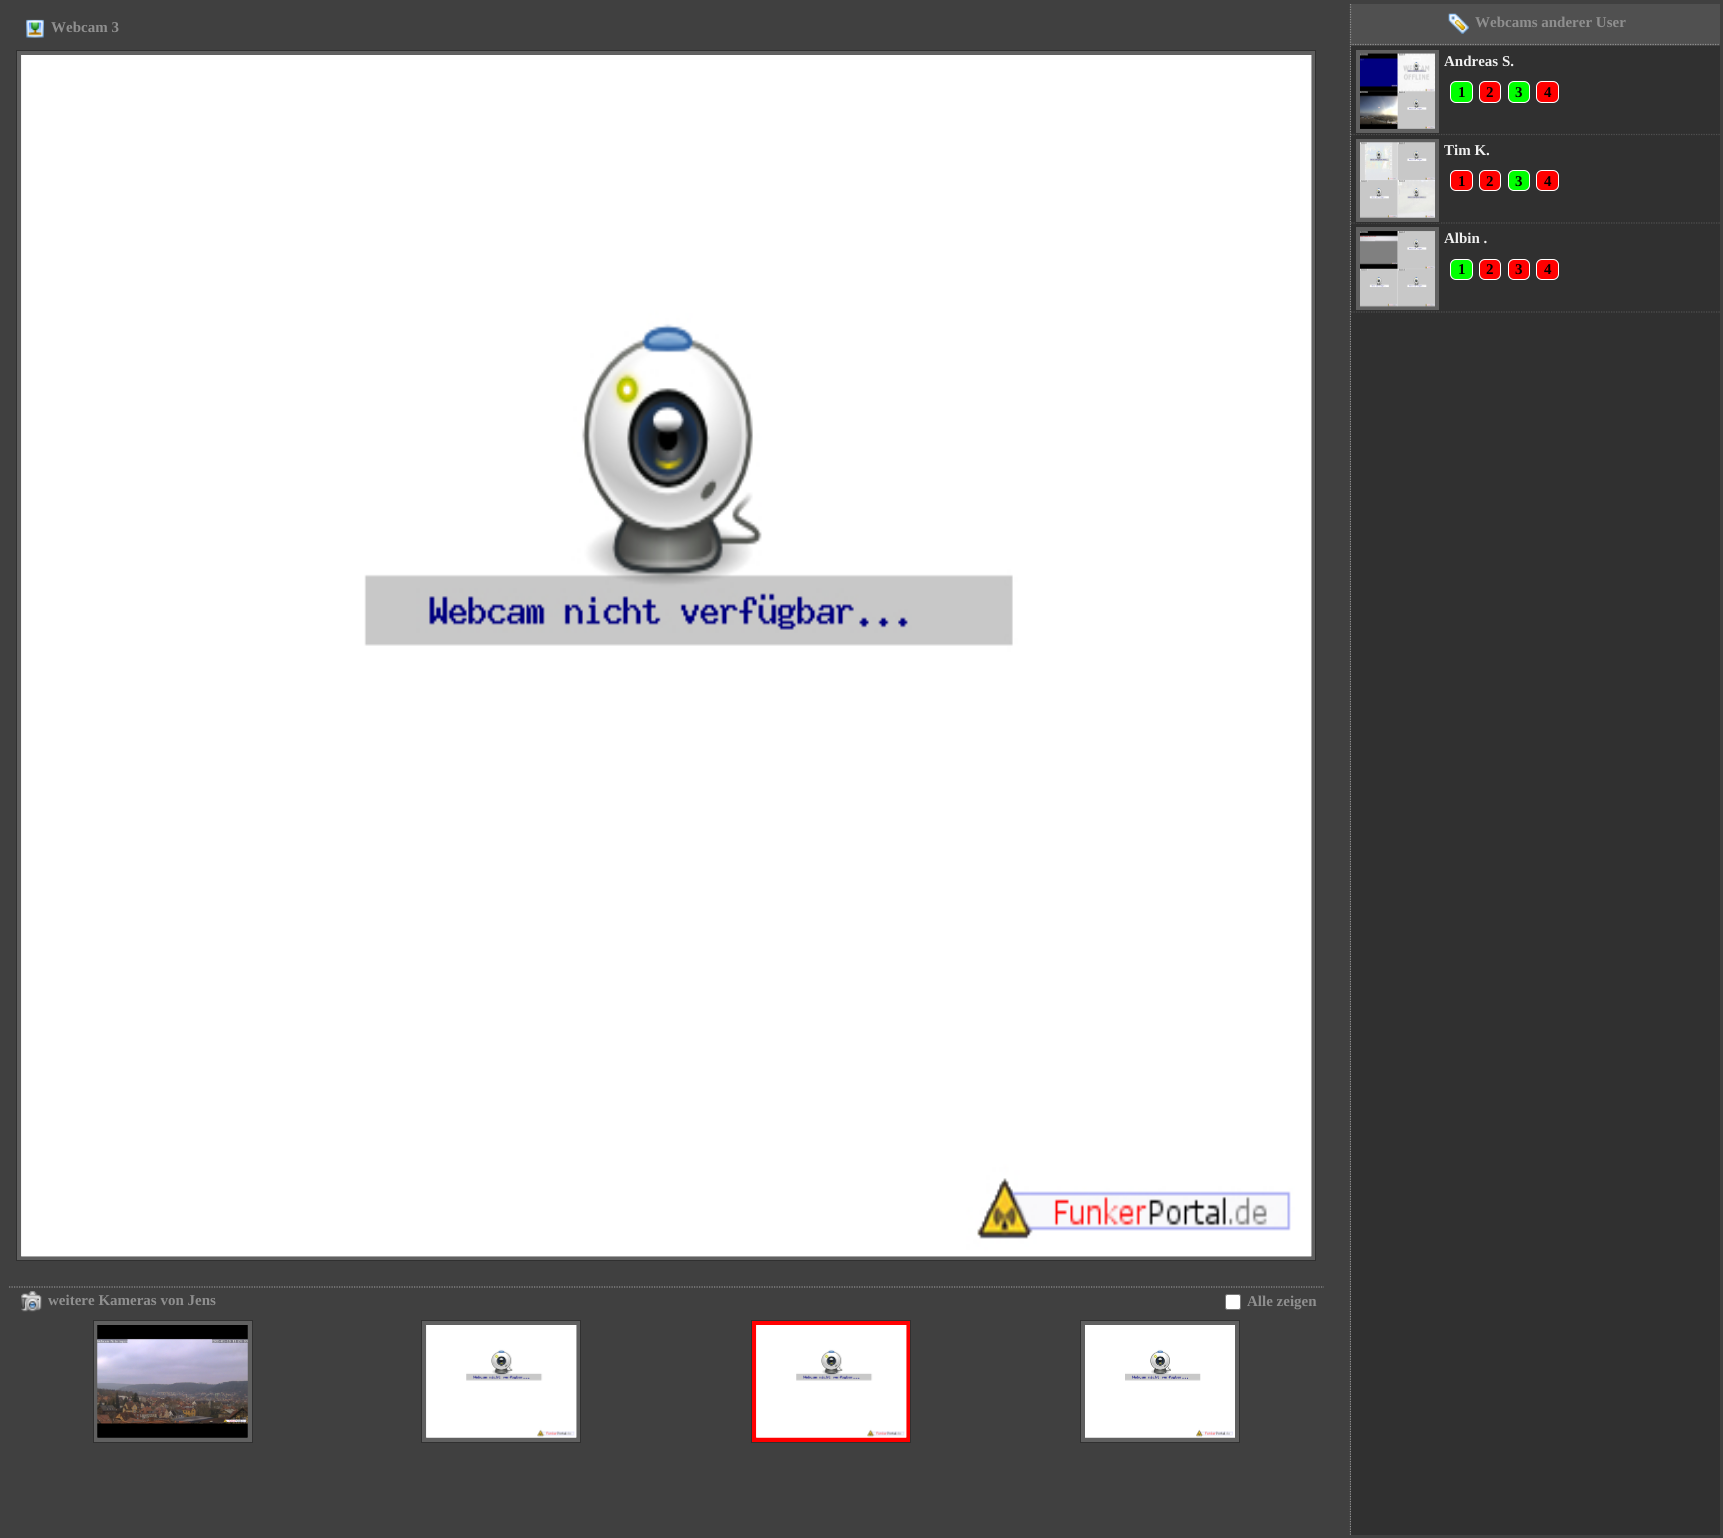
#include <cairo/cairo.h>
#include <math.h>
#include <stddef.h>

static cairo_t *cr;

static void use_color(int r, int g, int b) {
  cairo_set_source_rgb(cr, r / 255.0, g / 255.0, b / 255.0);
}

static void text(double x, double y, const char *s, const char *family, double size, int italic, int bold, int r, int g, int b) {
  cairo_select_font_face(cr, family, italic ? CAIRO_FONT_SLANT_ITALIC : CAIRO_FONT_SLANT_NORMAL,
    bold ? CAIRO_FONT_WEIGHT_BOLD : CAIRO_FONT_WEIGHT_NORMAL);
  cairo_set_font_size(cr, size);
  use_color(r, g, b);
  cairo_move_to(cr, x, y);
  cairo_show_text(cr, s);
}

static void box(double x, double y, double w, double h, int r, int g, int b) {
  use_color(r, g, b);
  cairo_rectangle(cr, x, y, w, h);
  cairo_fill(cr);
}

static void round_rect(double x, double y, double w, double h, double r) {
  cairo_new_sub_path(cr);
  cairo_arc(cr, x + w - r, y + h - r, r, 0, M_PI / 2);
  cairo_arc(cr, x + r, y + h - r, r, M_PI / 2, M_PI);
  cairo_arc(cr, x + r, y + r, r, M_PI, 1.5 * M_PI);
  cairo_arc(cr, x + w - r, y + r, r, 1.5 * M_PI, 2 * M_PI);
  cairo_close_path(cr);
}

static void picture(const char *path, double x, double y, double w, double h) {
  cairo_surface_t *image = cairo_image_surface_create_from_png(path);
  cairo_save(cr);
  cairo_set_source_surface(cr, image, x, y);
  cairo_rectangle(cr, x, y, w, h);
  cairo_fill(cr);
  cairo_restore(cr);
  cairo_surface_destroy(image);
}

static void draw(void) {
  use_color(64, 64, 64);
  cairo_paint(cr);
  picture("img_01.png", 26, 19, 18, 19);
  box(1350, 4, 370, 41, 80, 80, 80);
  cairo_new_path(cr);
  cairo_move_to(cr, 1350, 44.5);
  cairo_line_to(cr, 1720, 44.5);
  use_color(143, 143, 143);
  cairo_set_line_width(cr, 1.2);
  cairo_set_dash(cr, (double[]){1.25, 1.25}, 2, 0);
  cairo_stroke(cr);
  cairo_new_path(cr);
  cairo_move_to(cr, 1350.5, 4);
  cairo_line_to(cr, 1350.5, 45);
  cairo_stroke(cr);
  picture("img_02.png", 1448, 13, 21, 21);
  box(17, 51, 1298, 1209, 96, 96, 96);
  picture("img_03.png", 21, 55, 1291, 1202);
  cairo_rectangle(cr, 16.5, 50.5, 1299, 1210);
  use_color(48, 48, 48);
  cairo_set_line_width(cr, 1);
  cairo_set_dash(cr, NULL, 0, 0);
  cairo_stroke(cr);
  picture("img_04.png", 21, 55, 1291, 1202);
  cairo_new_path(cr);
  cairo_move_to(cr, 1350.5, 46);
  cairo_line_to(cr, 1350.5, 1535);
  use_color(143, 143, 143);
  cairo_set_line_width(cr, 1.2);
  cairo_set_dash(cr, (double[]){1.25, 1.25}, 2, 0);
  cairo_stroke(cr);
  box(1351, 46, 369, 1489, 48, 48, 48);
  cairo_save(cr);
  cairo_rectangle(cr, 1351, 46, 369, 1489);
  cairo_clip(cr);
  cairo_new_path(cr);
  cairo_move_to(cr, 1351, 134.5);
  cairo_line_to(cr, 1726, 134.5);
  use_color(80, 80, 80);
  cairo_stroke(cr);
  cairo_restore(cr);
  box(1356, 50, 83, 83, 96, 96, 96);
  picture("img_05.png", 1360, 53, 75, 76);
  cairo_rectangle(cr, 1355.5, 49.5, 84, 84);
  use_color(48, 48, 48);
  cairo_set_line_width(cr, 1);
  cairo_set_dash(cr, NULL, 0, 0);
  cairo_stroke(cr);
  picture("img_06.png", 1360, 53, 75, 76);
  use_color(0, 255, 0);
  round_rect(1450.5, 81.5, 22, 21, 5.5);
  cairo_fill_preserve(cr);
  use_color(255, 255, 255);
  cairo_stroke(cr);
  use_color(255, 0, 0);
  round_rect(1479.5, 81.5, 21, 21, 5.5);
  cairo_fill_preserve(cr);
  use_color(255, 255, 255);
  cairo_stroke(cr);
  use_color(0, 255, 0);
  round_rect(1508.5, 81.5, 21, 21, 5.5);
  cairo_fill_preserve(cr);
  use_color(255, 255, 255);
  cairo_stroke(cr);
  use_color(255, 0, 0);
  round_rect(1536.5, 81.5, 22, 21, 5.5);
  cairo_fill_preserve(cr);
  use_color(255, 255, 255);
  cairo_stroke(cr);
  cairo_save(cr);
  cairo_rectangle(cr, 1351, 46, 369, 1489);
  cairo_clip(cr);
  cairo_new_path(cr);
  cairo_move_to(cr, 1351, 223);
  cairo_line_to(cr, 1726, 223);
  use_color(80, 80, 80);
  cairo_set_line_width(cr, 1.2);
  cairo_set_dash(cr, (double[]){1.25, 1.25}, 2, 0);
  cairo_stroke(cr);
  cairo_restore(cr);
  box(1356, 139, 83, 83, 96, 96, 96);
  picture("img_07.png", 1360, 142, 75, 76);
  cairo_rectangle(cr, 1355.5, 138.5, 84, 84);
  use_color(48, 48, 48);
  cairo_stroke(cr);
  picture("img_08.png", 1360, 142, 75, 76);
  use_color(255, 0, 0);
  round_rect(1450.5, 170.5, 22, 20, 5.5);
  cairo_fill_preserve(cr);
  use_color(255, 255, 255);
  cairo_stroke(cr);
  use_color(255, 0, 0);
  round_rect(1479.5, 170.5, 21, 20, 5.5);
  cairo_fill_preserve(cr);
  use_color(255, 255, 255);
  cairo_stroke(cr);
  use_color(0, 255, 0);
  round_rect(1508.5, 170.5, 21, 20, 5.5);
  cairo_fill_preserve(cr);
  use_color(255, 255, 255);
  cairo_stroke(cr);
  use_color(255, 0, 0);
  round_rect(1536.5, 170.5, 22, 20, 5.5);
  cairo_fill_preserve(cr);
  use_color(255, 255, 255);
  cairo_stroke(cr);
  cairo_save(cr);
  cairo_rectangle(cr, 1351, 46, 369, 1489);
  cairo_clip(cr);
  cairo_new_path(cr);
  cairo_move_to(cr, 1351, 312);
  cairo_line_to(cr, 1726, 312);
  use_color(80, 80, 80);
  cairo_set_line_width(cr, 1.2);
  cairo_set_dash(cr, (double[]){1.25, 1.25}, 2, 0);
  cairo_stroke(cr);
  cairo_restore(cr);
  box(1356, 227, 83, 83, 96, 96, 96);
  picture("img_09.png", 1360, 231, 75, 76);
  picture("img_10.png", 1360, 231, 75, 76);
  use_color(0, 255, 0);
  round_rect(1450.5, 259.5, 22, 20, 5.5);
  cairo_fill_preserve(cr);
  use_color(255, 255, 255);
  cairo_stroke(cr);
  use_color(255, 0, 0);
  round_rect(1479.5, 259.5, 21, 20, 5.5);
  cairo_fill_preserve(cr);
  use_color(255, 255, 255);
  cairo_stroke(cr);
  use_color(255, 0, 0);
  round_rect(1508.5, 259.5, 21, 20, 5.5);
  cairo_fill_preserve(cr);
  use_color(255, 255, 255);
  cairo_stroke(cr);
  use_color(255, 0, 0);
  round_rect(1536.5, 259.5, 22, 20, 5.5);
  cairo_fill_preserve(cr);
  use_color(255, 255, 255);
  cairo_stroke(cr);
  cairo_new_path(cr);
  cairo_move_to(cr, 9, 1287);
  cairo_line_to(cr, 995, 1287);
  use_color(143, 143, 143);
  cairo_set_line_width(cr, 1.2);
  cairo_set_dash(cr, (double[]){1.25, 1.25}, 2, 0);
  cairo_stroke(cr);
  picture("img_11.png", 21, 1291, 21, 21);
  cairo_new_path(cr);
  cairo_move_to(cr, 996, 1287);
  cairo_line_to(cr, 1324, 1287);
  cairo_stroke(cr);
  use_color(255, 255, 255);
  round_rect(1225.5, 1294.5, 15, 15, 2);
  cairo_fill_preserve(cr);
  use_color(118, 118, 118);
  cairo_set_line_width(cr, 1);
  cairo_set_dash(cr, NULL, 0, 0);
  cairo_stroke(cr);
  box(94, 1321, 158, 121, 96, 96, 96);
  picture("img_12.png", 97, 1325, 151, 113);
  cairo_rectangle(cr, 93.5, 1320.5, 159, 122);
  use_color(48, 48, 48);
  cairo_stroke(cr);
  picture("img_13.png", 97, 1325, 151, 113);
  box(422, 1321, 158, 121, 96, 96, 96);
  picture("img_14.png", 426, 1325, 151, 113);
  cairo_rectangle(cr, 421.5, 1320.5, 159, 122);
  use_color(48, 48, 48);
  cairo_stroke(cr);
  picture("img_15.png", 426, 1325, 151, 113);
  box(752, 1321, 158, 121, 255, 0, 0);
  picture("img_16.png", 756, 1325, 151, 113);
  cairo_rectangle(cr, 751.5, 1320.5, 159, 122);
  use_color(48, 48, 48);
  cairo_stroke(cr);
  picture("img_17.png", 756, 1325, 151, 113);
  box(1081, 1321, 158, 121, 96, 96, 96);
  picture("img_18.png", 1085, 1325, 150, 112);
  cairo_rectangle(cr, 1080.5, 1320.5, 159, 122);
  use_color(48, 48, 48);
  cairo_stroke(cr);
  box(1085, 1437, 150, 1, 215, 215, 215);
  text(51, 32, "Webcam 3", "Liberation Serif", 15, 0, 1, 143, 143, 143);
  text(1475, 27, "Webcams anderer User", "Liberation Serif", 15, 0, 1, 143, 143, 143);
  text(1444, 66, "Andreas S.", "Liberation Serif", 15, 0, 1, 240, 240, 240);
  text(1458, 97, "1", "Liberation Serif", 15, 0, 1, 0, 0, 0);
  text(1486, 97, "2", "Liberation Serif", 15, 0, 1, 0, 0, 0);
  text(1515, 97, "3", "Liberation Serif", 15, 0, 1, 0, 0, 0);
  text(1544, 97, "4", "Liberation Serif", 15, 0, 1, 0, 0, 0);
  text(1444, 155, "Tim K.", "Liberation Serif", 15, 0, 1, 240, 240, 240);
  text(1458, 186, "1", "Liberation Serif", 15, 0, 1, 0, 0, 0);
  text(1486, 186, "2", "Liberation Serif", 15, 0, 1, 0, 0, 0);
  text(1515, 186, "3", "Liberation Serif", 15, 0, 1, 0, 0, 0);
  text(1544, 186, "4", "Liberation Serif", 15, 0, 1, 0, 0, 0);
  text(1444, 243, "Albin .", "Liberation Serif", 15, 0, 1, 240, 240, 240);
  text(1458, 274, "1", "Liberation Serif", 15, 0, 1, 0, 0, 0);
  text(1486, 274, "2", "Liberation Serif", 15, 0, 1, 0, 0, 0);
  text(1515, 274, "3", "Liberation Serif", 15, 0, 1, 0, 0, 0);
  text(1544, 274, "4", "Liberation Serif", 15, 0, 1, 0, 0, 0);
  text(48, 1305, "weitere Kameras von Jens", "Liberation Serif", 15, 0, 1, 143, 143, 143);
  text(1247, 1306, "Alle zeigen", "Liberation Serif", 15, 0, 1, 143, 143, 143);
}

int main(void) {
  cairo_surface_t *surface = cairo_image_surface_create(CAIRO_FORMAT_RGB24, 1723, 1538);
  cr = cairo_create(surface);
  cairo_font_options_t *options = cairo_font_options_create();
  cairo_font_options_set_hint_metrics(options, CAIRO_HINT_METRICS_OFF);
  cairo_font_options_set_hint_style(options, CAIRO_HINT_STYLE_NONE);
  cairo_set_font_options(cr, options);
  cairo_set_miter_limit(cr, 4);
  draw();
  cairo_surface_write_to_png(surface, "out.png");
  cairo_font_options_destroy(options);
  cairo_destroy(cr);
  cairo_surface_destroy(surface);
  return 0;
}
